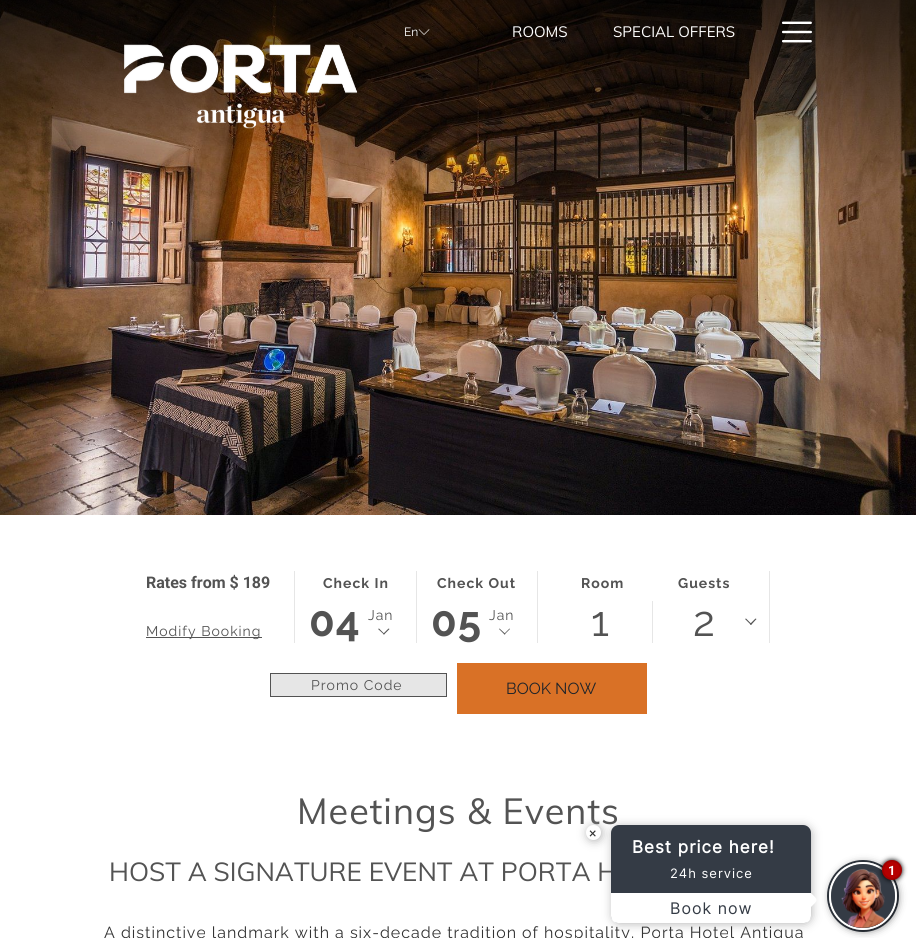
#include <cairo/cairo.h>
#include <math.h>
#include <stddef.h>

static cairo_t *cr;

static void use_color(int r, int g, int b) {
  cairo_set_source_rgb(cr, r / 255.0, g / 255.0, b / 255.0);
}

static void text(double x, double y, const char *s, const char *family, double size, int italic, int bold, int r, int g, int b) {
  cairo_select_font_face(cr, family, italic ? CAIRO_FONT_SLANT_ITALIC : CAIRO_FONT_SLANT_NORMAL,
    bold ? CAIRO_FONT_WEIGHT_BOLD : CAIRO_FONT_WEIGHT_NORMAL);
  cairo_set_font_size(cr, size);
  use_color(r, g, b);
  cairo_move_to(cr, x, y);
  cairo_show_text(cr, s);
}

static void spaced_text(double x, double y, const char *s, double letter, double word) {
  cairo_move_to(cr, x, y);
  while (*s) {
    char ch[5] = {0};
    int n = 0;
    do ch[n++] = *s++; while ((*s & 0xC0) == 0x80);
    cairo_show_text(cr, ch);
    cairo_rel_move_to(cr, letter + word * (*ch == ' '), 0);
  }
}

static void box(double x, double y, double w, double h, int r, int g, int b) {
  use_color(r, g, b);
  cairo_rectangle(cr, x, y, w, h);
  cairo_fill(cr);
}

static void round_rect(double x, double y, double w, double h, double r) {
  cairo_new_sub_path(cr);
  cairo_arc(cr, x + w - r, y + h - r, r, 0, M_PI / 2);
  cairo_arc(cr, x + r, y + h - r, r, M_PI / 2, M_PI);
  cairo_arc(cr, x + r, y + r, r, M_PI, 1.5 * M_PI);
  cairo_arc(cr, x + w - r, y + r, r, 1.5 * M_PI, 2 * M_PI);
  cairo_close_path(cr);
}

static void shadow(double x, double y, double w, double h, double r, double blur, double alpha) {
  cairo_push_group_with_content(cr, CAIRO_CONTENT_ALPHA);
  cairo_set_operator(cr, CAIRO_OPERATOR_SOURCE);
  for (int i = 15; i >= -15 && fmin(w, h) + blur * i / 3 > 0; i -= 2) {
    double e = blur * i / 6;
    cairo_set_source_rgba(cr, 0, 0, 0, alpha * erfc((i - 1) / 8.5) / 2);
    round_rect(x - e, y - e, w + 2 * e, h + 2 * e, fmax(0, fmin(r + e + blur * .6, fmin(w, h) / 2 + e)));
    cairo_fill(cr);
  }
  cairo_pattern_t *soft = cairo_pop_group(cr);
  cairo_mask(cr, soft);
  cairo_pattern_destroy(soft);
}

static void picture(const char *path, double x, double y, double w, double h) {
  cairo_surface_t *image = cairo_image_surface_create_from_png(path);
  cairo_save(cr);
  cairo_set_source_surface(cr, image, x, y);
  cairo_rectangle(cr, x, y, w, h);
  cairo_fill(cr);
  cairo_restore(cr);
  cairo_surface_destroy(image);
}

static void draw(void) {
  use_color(255, 255, 255);
  cairo_paint(cr);
  picture("img_04.png", 0, 0, 916, 515);
  picture("img_01.png", 418, 29, 12, 6);
  picture("img_02.png", 782, 21, 30, 22);
  picture("img_03.png", 124, 44, 234, 85);
  box(294, 571, 1, 72, 230, 230, 230);
  box(146, 637, 116, 1, 83, 83, 83);
  box(416, 571, 1, 72, 230, 230, 230);
  use_color(83, 83, 83);
  cairo_new_path(cr);
  cairo_move_to(cr, 388.5, 628.5);
  cairo_line_to(cr, 389.5, 629);
  cairo_line_to(cr, 384, 634.5);
  cairo_line_to(cr, 383, 634);
  cairo_close_path(cr);
  cairo_fill(cr);
  cairo_new_path(cr);
  cairo_move_to(cr, 379, 628.5);
  cairo_line_to(cr, 384.5, 634);
  cairo_line_to(cr, 384, 634.5);
  cairo_line_to(cr, 378, 629);
  cairo_close_path(cr);
  cairo_fill(cr);
  box(537, 571, 1, 72, 230, 230, 230);
  use_color(83, 83, 83);
  cairo_new_path(cr);
  cairo_move_to(cr, 509.5, 628.5);
  cairo_line_to(cr, 510, 629);
  cairo_line_to(cr, 504.5, 634.5);
  cairo_line_to(cr, 504, 634);
  cairo_close_path(cr);
  cairo_fill(cr);
  cairo_new_path(cr);
  cairo_move_to(cr, 499.5, 628.5);
  cairo_line_to(cr, 505.5, 634);
  cairo_line_to(cr, 504.5, 634.5);
  cairo_line_to(cr, 499, 629);
  cairo_close_path(cr);
  cairo_fill(cr);
  box(769, 571, 1, 72, 230, 230, 230);
  box(652, 601, 1, 42, 230, 230, 230);
  use_color(83, 83, 83);
  cairo_new_path(cr);
  cairo_move_to(cr, 755.5, 618.5);
  cairo_line_to(cr, 756.5, 619);
  cairo_line_to(cr, 751, 625);
  cairo_line_to(cr, 750, 624);
  cairo_close_path(cr);
  cairo_fill(cr);
  cairo_new_path(cr);
  cairo_move_to(cr, 746, 618.5);
  cairo_line_to(cr, 751.5, 624);
  cairo_line_to(cr, 751, 625);
  cairo_line_to(cr, 745, 619);
  cairo_close_path(cr);
  cairo_fill(cr);
  use_color(230, 230, 230);
  cairo_rectangle(cr, 270.5, 673.5, 176, 23);
  cairo_fill_preserve(cr);
  use_color(83, 83, 83);
  cairo_set_line_width(cr, 1);
  cairo_stroke(cr);
  box(457, 663, 190, 51, 217, 113, 38);
  cairo_arc(cr, 863, 896, 35, 0, 2 * M_PI);
  use_color(52, 59, 69);
  cairo_set_line_width(cr, 2);
  cairo_stroke(cr);
  use_color(0, 0, 0);
  shadow(833, 866, 62, 62, 31, 5, 1);
  cairo_arc(cr, 863, 896, 33, 0, 2 * M_PI);
  use_color(255, 255, 255);
  cairo_stroke(cr);
  use_color(170, 170, 170);
  shadow(613, 827, 198, 96, 7, 5, 1);
  use_color(52, 59, 69);
  cairo_arc(cr, 863, 896, 32, 0, 2 * M_PI);
  cairo_fill(cr);
  picture("img_05.png", 841, 869, 44, 59);
  use_color(0, 0, 0);
  shadow(882, 860, 20, 20, 10, 2.5, 1);
  use_color(182, 0, 0);
  cairo_arc(cr, 892, 870, 9, 0, 2 * M_PI);
  cairo_fill_preserve(cr);
  use_color(163, 0, 0);
  cairo_stroke(cr);
  text(404, 36, "En", "Raleway", 12, 0, 0, 255, 255, 255);
  text(512, 37, "ROOMS", "Muli", 15, 0, 0, 255, 255, 255);
  text(613, 37, "SPECIAL OFFERS", "Muli", 15, 0, 0, 255, 255, 255);
  text(146, 588, "Rates from $ 189", "Roboto", 16, 0, 1, 83, 83, 83);
  cairo_select_font_face(cr, "Raleway", CAIRO_FONT_SLANT_NORMAL, CAIRO_FONT_WEIGHT_NORMAL);
  cairo_set_font_size(cr, 14);
  spaced_text(146, 636, "Modify Booking", 1, 0);
  cairo_select_font_face(cr, "Raleway", CAIRO_FONT_SLANT_NORMAL, CAIRO_FONT_WEIGHT_BOLD);
  spaced_text(323, 588, "Check In", 1, 0);
  cairo_set_font_size(cr, 42);
  spaced_text(309, 636, "04", 1, 0);
  cairo_select_font_face(cr, "Raleway", CAIRO_FONT_SLANT_NORMAL, CAIRO_FONT_WEIGHT_NORMAL);
  cairo_set_font_size(cr, 14);
  spaced_text(368, 620, "Jan", 1, 0);
  cairo_select_font_face(cr, "Raleway", CAIRO_FONT_SLANT_NORMAL, CAIRO_FONT_WEIGHT_BOLD);
  spaced_text(437, 588, "Check Out", 1, 0);
  cairo_set_font_size(cr, 42);
  spaced_text(431, 636, "05", 1, 0);
  cairo_select_font_face(cr, "Raleway", CAIRO_FONT_SLANT_NORMAL, CAIRO_FONT_WEIGHT_NORMAL);
  cairo_set_font_size(cr, 14);
  spaced_text(489, 620, "Jan", 1, 0);
  cairo_select_font_face(cr, "Raleway", CAIRO_FONT_SLANT_NORMAL, CAIRO_FONT_WEIGHT_BOLD);
  spaced_text(581, 588, "Room", 1, 0);
  cairo_select_font_face(cr, "Raleway", CAIRO_FONT_SLANT_NORMAL, CAIRO_FONT_WEIGHT_NORMAL);
  cairo_set_font_size(cr, 42);
  spaced_text(591, 636, "1", 1, 0);
  cairo_select_font_face(cr, "Raleway", CAIRO_FONT_SLANT_NORMAL, CAIRO_FONT_WEIGHT_BOLD);
  cairo_set_font_size(cr, 14);
  spaced_text(678, 588, "Guests", 1, 0);
  cairo_select_font_face(cr, "Raleway", CAIRO_FONT_SLANT_NORMAL, CAIRO_FONT_WEIGHT_NORMAL);
  cairo_set_font_size(cr, 42);
  spaced_text(693, 636, "2", 1, 0);
  cairo_set_font_size(cr, 14);
  spaced_text(311, 690, "Promo Code", 1, 0);
  text(506, 694, "BOOK NOW", "Raleway", 16, 0, 0, 32, 36, 41);
  cairo_select_font_face(cr, "Muli", CAIRO_FONT_SLANT_NORMAL, CAIRO_FONT_WEIGHT_NORMAL);
  cairo_set_font_size(cr, 36);
  use_color(83, 83, 83);
  spaced_text(297, 824, "Meetings & Events", 1, 0);
  text(109, 881, "HOST A SIGNATURE EVENT AT PORTA H", "Muli", 26, 0, 0, 83, 83, 83);
  cairo_select_font_face(cr, "Raleway", CAIRO_FONT_SLANT_NORMAL, CAIRO_FONT_WEIGHT_NORMAL);
  cairo_set_font_size(cr, 16);
  use_color(51, 51, 51);
  spaced_text(104, 938, "A distinctive landmark with a six-decade tradition of hospitality, Porta Hotel Antigua", 1, 0);
  use_color(52, 59, 69);
  round_rect(611, 825, 200, 98, 8);
  cairo_fill(cr);
  use_color(170, 170, 170);
  shadow(588, 827, 13, 13, 6.5, 5, 1);
  use_color(255, 255, 255);
  cairo_arc(cr, 593.5, 832.5, 7.5, 0, 2 * M_PI);
  cairo_fill(cr);
  cairo_select_font_face(cr, "Roboto", CAIRO_FONT_SLANT_NORMAL, CAIRO_FONT_WEIGHT_NORMAL);
  cairo_set_font_size(cr, 14);
  use_color(51, 51, 51);
  spaced_text(589, 838, "×", 1, 0);
  cairo_select_font_face(cr, "Inter", CAIRO_FONT_SLANT_NORMAL, CAIRO_FONT_WEIGHT_BOLD);
  cairo_set_font_size(cr, 17);
  use_color(255, 255, 255);
  spaced_text(632, 853, "Best price here!", 1, 0);
  cairo_select_font_face(cr, "Inter", CAIRO_FONT_SLANT_NORMAL, CAIRO_FONT_WEIGHT_NORMAL);
  cairo_set_font_size(cr, 13);
  spaced_text(670, 878, "24h service", 1, 0);
  cairo_new_path(cr);
  cairo_move_to(cr, 611, 893);
  cairo_line_to(cr, 811, 893);
  cairo_line_to(cr, 811, 916);
  cairo_curve_to(cr, 811, 920, 808, 923, 804, 923);
  cairo_line_to(cr, 618, 923);
  cairo_curve_to(cr, 614, 923, 611, 920, 611, 916);
  cairo_close_path(cr);
  cairo_fill(cr);
  cairo_new_path(cr);
  cairo_move_to(cr, 811, 893);
  cairo_curve_to(cr, 818.5, 900.5, 818.5, 899.5, 811, 907);
  cairo_line_to(cr, 804, 900);
  cairo_close_path(cr);
  cairo_fill(cr);
  cairo_set_font_size(cr, 16);
  use_color(52, 59, 69);
  spaced_text(670, 914, "Book now", 1, 0);
  cairo_select_font_face(cr, "Roboto", CAIRO_FONT_SLANT_NORMAL, CAIRO_FONT_WEIGHT_BOLD);
  cairo_set_font_size(cr, 13);
  use_color(255, 255, 255);
  spaced_text(888, 875, "1", 1, 0);
}

int main(void) {
  cairo_surface_t *surface = cairo_image_surface_create(CAIRO_FORMAT_RGB24, 916, 938);
  cr = cairo_create(surface);
  cairo_font_options_t *options = cairo_font_options_create();
  cairo_font_options_set_hint_metrics(options, CAIRO_HINT_METRICS_OFF);
  cairo_font_options_set_hint_style(options, CAIRO_HINT_STYLE_NONE);
  cairo_set_font_options(cr, options);
  cairo_set_miter_limit(cr, 4);
  draw();
  cairo_surface_write_to_png(surface, "out.png");
  cairo_font_options_destroy(options);
  cairo_destroy(cr);
  cairo_surface_destroy(surface);
  return 0;
}
